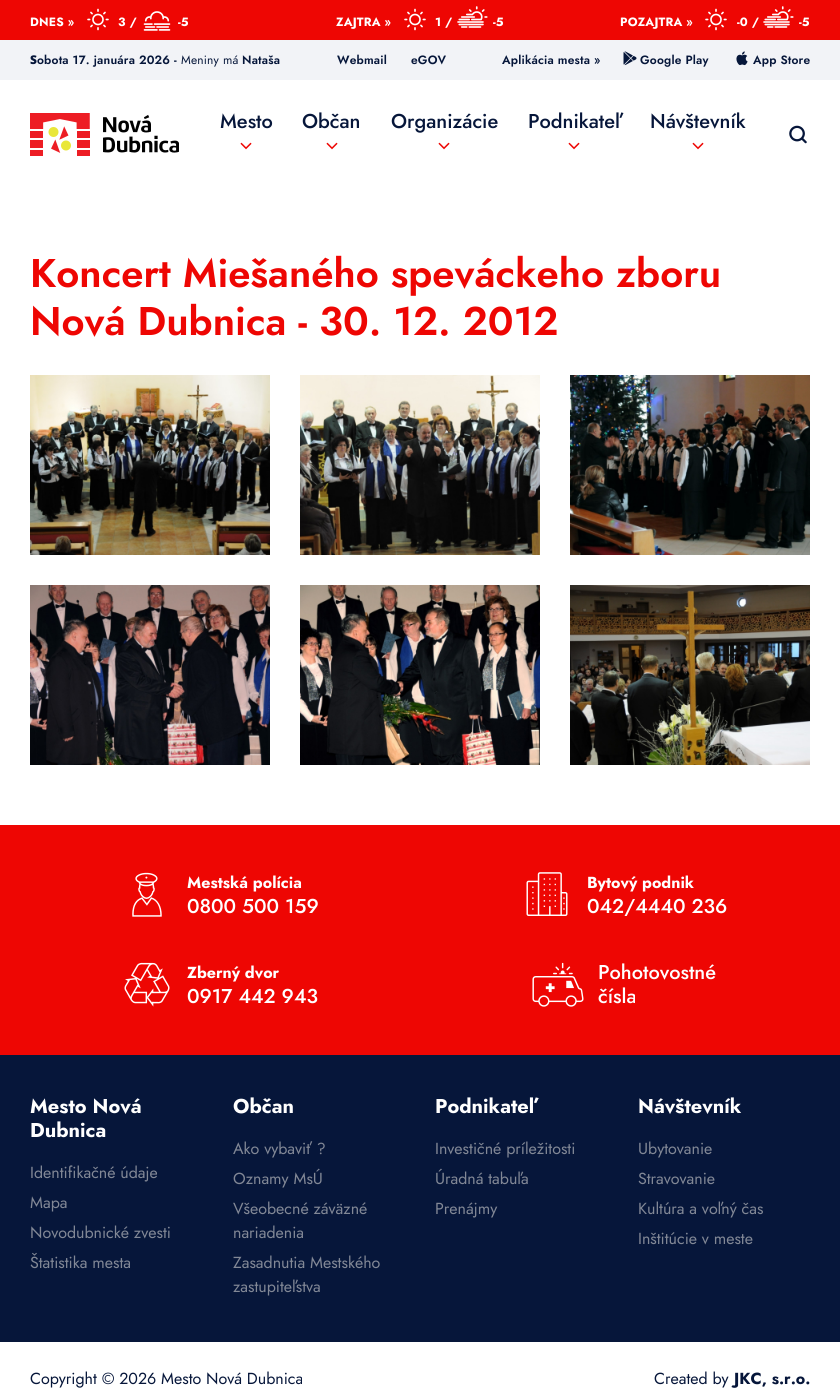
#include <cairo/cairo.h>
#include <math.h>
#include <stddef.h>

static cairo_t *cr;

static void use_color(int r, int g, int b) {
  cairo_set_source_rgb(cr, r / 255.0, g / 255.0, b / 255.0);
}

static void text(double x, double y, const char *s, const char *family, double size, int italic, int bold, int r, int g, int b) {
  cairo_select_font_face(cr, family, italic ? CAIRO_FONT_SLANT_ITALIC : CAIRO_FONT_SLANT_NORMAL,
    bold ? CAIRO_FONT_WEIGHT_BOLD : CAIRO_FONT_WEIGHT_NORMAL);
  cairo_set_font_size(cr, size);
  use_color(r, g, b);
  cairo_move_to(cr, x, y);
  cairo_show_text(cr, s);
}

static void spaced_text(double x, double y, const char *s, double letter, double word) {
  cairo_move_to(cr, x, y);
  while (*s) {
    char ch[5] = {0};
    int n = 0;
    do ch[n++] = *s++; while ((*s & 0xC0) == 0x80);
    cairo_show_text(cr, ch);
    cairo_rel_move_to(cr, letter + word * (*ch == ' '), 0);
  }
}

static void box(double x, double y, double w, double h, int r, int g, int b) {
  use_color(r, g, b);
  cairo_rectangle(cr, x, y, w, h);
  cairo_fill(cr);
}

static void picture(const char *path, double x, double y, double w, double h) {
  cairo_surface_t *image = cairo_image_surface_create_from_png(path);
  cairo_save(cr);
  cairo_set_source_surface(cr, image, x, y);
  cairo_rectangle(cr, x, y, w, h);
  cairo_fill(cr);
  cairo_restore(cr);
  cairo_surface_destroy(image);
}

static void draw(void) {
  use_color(255, 255, 255);
  cairo_paint(cr);
  box(0, 0, 840, 40, 238, 6, 3);
  picture("img_01.png", 87, 8, 22, 23);
  picture("img_02.png", 143, 11, 28, 20);
  picture("img_01.png", 404, 8, 22, 23);
  picture("img_03.png", 457, 6, 31, 22);
  picture("img_01.png", 705, 8, 22, 23);
  picture("img_03.png", 763, 6, 31, 22);
  box(0, 40, 840, 40, 242, 243, 247);
  picture("img_04.png", 623, 51, 14, 15);
  picture("img_05.png", 736, 51, 12, 15);
  picture("img_06.png", 30, 113, 149, 43);
  picture("img_07.png", 240, 142, 12, 8);
  picture("img_07.png", 326, 142, 12, 8);
  picture("img_07.png", 438, 142, 12, 8);
  picture("img_07.png", 568, 142, 12, 8);
  picture("img_07.png", 692, 142, 12, 8);
  picture("img_08.png", 789, 125, 18, 19);
  picture("img_09.png", 30, 375, 240, 180);
  picture("img_10.png", 300, 375, 240, 180);
  picture("img_11.png", 570, 375, 240, 180);
  picture("img_12.png", 30, 585, 240, 180);
  picture("img_13.png", 300, 585, 240, 180);
  picture("img_14.png", 570, 585, 240, 180);
  box(0, 825, 840, 230, 238, 6, 3);
  picture("img_15.png", 132, 872, 30, 45);
  picture("img_16.png", 526, 872, 42, 44);
  picture("img_17.png", 124, 962, 46, 45);
  picture("img_18.png", 532, 962, 52, 45);
  box(0, 1055, 840, 287, 6, 22, 58);
  cairo_select_font_face(cr, "Jost", CAIRO_FONT_SLANT_NORMAL, CAIRO_FONT_WEIGHT_BOLD);
  cairo_set_font_size(cr, 12);
  use_color(255, 255, 255);
  spaced_text(30, 26, "DNES »", 0.2, 0);
  spaced_text(118, 26, "3 /", 0.2, 0);
  spaced_text(178, 26, "-5", 0.2, 0);
  spaced_text(336, 26, "ZAJTRA »", 0.2, 0);
  spaced_text(435, 26, "1 /", 0.2, 0);
  spaced_text(493, 26, "-5", 0.2, 0);
  spaced_text(620, 26, "POZAJTRA »", 0.2, 0);
  spaced_text(737, 26, "-0 /", 0.2, 0);
  spaced_text(799, 26, "-5", 0.2, 0);
  cairo_select_font_face(cr, "Noto Sans Black", CAIRO_FONT_SLANT_NORMAL, CAIRO_FONT_WEIGHT_NORMAL);
  use_color(6, 22, 58);
  spaced_text(30, 64, "S", 0.2, 0);
  cairo_select_font_face(cr, "Jost SemiBold", CAIRO_FONT_SLANT_NORMAL, CAIRO_FONT_WEIGHT_NORMAL);
  spaced_text(37, 64, "obota 17. januára 2026 -", 0.2, 0);
  cairo_select_font_face(cr, "Jost", CAIRO_FONT_SLANT_NORMAL, CAIRO_FONT_WEIGHT_NORMAL);
  spaced_text(181, 64, "Meniny má", 0.2, 0);
  cairo_select_font_face(cr, "Jost SemiBold", CAIRO_FONT_SLANT_NORMAL, CAIRO_FONT_WEIGHT_NORMAL);
  spaced_text(242, 64, "Nataša", 0.2, 0);
  spaced_text(337, 64, "Webmail", 0.2, 0);
  spaced_text(411, 64, "eGOV", 0.2, 0);
  spaced_text(502, 64, "Aplikácia mesta »", 0.2, 0);
  spaced_text(640, 64, "Google Play", 0.2, 0);
  spaced_text(753, 64, "App Store", 0.2, 0);
  text(220, 128, "Mesto", "Jost Medium", 20, 0, 0, 6, 22, 58);
  text(302, 128, "Občan", "Jost Medium", 20, 0, 0, 6, 22, 58);
  text(391, 128, "Organizácie", "Jost Medium", 20, 0, 0, 6, 22, 58);
  text(528, 128, "Podnikateľ", "Jost Medium", 20, 0, 0, 6, 22, 58);
  text(650, 128, "Návštevník", "Jost Medium", 20, 0, 0, 6, 22, 58);
  text(30, 287, "Koncert Miešaného speváckeho zboru", "Jost SemiBold", 40, 0, 0, 238, 6, 3);
  text(30, 335, "Nová Dubnica - 30. 12. 2012", "Jost SemiBold", 40, 0, 0, 238, 6, 3);
  text(187, 888, "Mestská polícia", "Jost", 16, 0, 1, 255, 255, 255);
  text(187, 913, "0800 500 159", "Jost Medium", 20, 0, 0, 255, 255, 255);
  text(587, 888, "Bytový podnik", "Jost", 16, 0, 1, 255, 255, 255);
  text(587, 913, "042/4440 236", "Jost Medium", 20, 0, 0, 255, 255, 255);
  text(187, 978, "Zberný dvor", "Jost", 16, 0, 1, 255, 255, 255);
  text(187, 1003, "0917 442 943", "Jost Medium", 20, 0, 0, 255, 255, 255);
  text(598, 979, "Pohotovostné", "Jost Medium", 20, 0, 0, 255, 255, 255);
  text(598, 1003, "čísla", "Jost Medium", 20, 0, 0, 255, 255, 255);
  text(30, 1113, "Mesto Nová", "Jost", 20, 0, 1, 255, 255, 255);
  text(30, 1137, "Dubnica", "Jost", 20, 0, 1, 255, 255, 255);
  text(30, 1178, "Identifikačné údaje", "Jost", 16, 0, 0, 130, 136, 150);
  text(30, 1208, "Mapa", "Jost", 16, 0, 0, 130, 136, 150);
  text(30, 1238, "Novodubnické zvesti", "Jost", 16, 0, 0, 130, 136, 150);
  text(30, 1268, "Štatistika mesta", "Jost", 16, 0, 0, 130, 136, 150);
  text(233, 1113, "Občan", "Jost", 20, 0, 1, 255, 255, 255);
  text(233, 1154, "Ako vybaviť ?", "Jost", 16, 0, 0, 130, 136, 150);
  text(233, 1184, "Oznamy MsÚ", "Jost", 16, 0, 0, 130, 136, 150);
  text(233, 1214, "Všeobecné záväzné", "Jost", 16, 0, 0, 130, 136, 150);
  text(233, 1238, "nariadenia", "Jost", 16, 0, 0, 130, 136, 150);
  text(233, 1268, "Zasadnutia Mestského", "Jost", 16, 0, 0, 130, 136, 150);
  text(233, 1292, "zastupiteľstva", "Jost", 16, 0, 0, 130, 136, 150);
  text(435, 1113, "Podnikateľ", "Jost", 20, 0, 1, 255, 255, 255);
  text(435, 1154, "Investičné príležitosti", "Jost", 16, 0, 0, 130, 136, 150);
  text(435, 1184, "Úradná tabuľa", "Jost", 16, 0, 0, 130, 136, 150);
  text(435, 1214, "Prenájmy", "Jost", 16, 0, 0, 130, 136, 150);
  text(638, 1113, "Návštevník", "Jost", 20, 0, 1, 255, 255, 255);
  text(638, 1154, "Ubytovanie", "Jost", 16, 0, 0, 130, 136, 150);
  text(638, 1184, "Stravovanie", "Jost", 16, 0, 0, 130, 136, 150);
  text(638, 1214, "Kultúra a voľný čas", "Jost", 16, 0, 0, 130, 136, 150);
  text(638, 1244, "Inštitúcie v meste", "Jost", 16, 0, 0, 130, 136, 150);
  text(30, 1384, "Copyright © 2026 Mesto Nová Dubnica", "Jost", 16, 0, 0, 6, 22, 58);
  text(654, 1384, "Created by", "Jost", 16, 0, 0, 6, 22, 58);
  text(734, 1384, "JKC, s.r.o.", "Jost", 16, 0, 1, 6, 22, 58);
}

int main(void) {
  cairo_surface_t *surface = cairo_image_surface_create(CAIRO_FORMAT_RGB24, 840, 1400);
  cr = cairo_create(surface);
  cairo_font_options_t *options = cairo_font_options_create();
  cairo_font_options_set_hint_metrics(options, CAIRO_HINT_METRICS_OFF);
  cairo_font_options_set_hint_style(options, CAIRO_HINT_STYLE_NONE);
  cairo_set_font_options(cr, options);
  cairo_set_miter_limit(cr, 4);
  draw();
  cairo_surface_write_to_png(surface, "out.png");
  cairo_font_options_destroy(options);
  cairo_destroy(cr);
  cairo_surface_destroy(surface);
  return 0;
}
